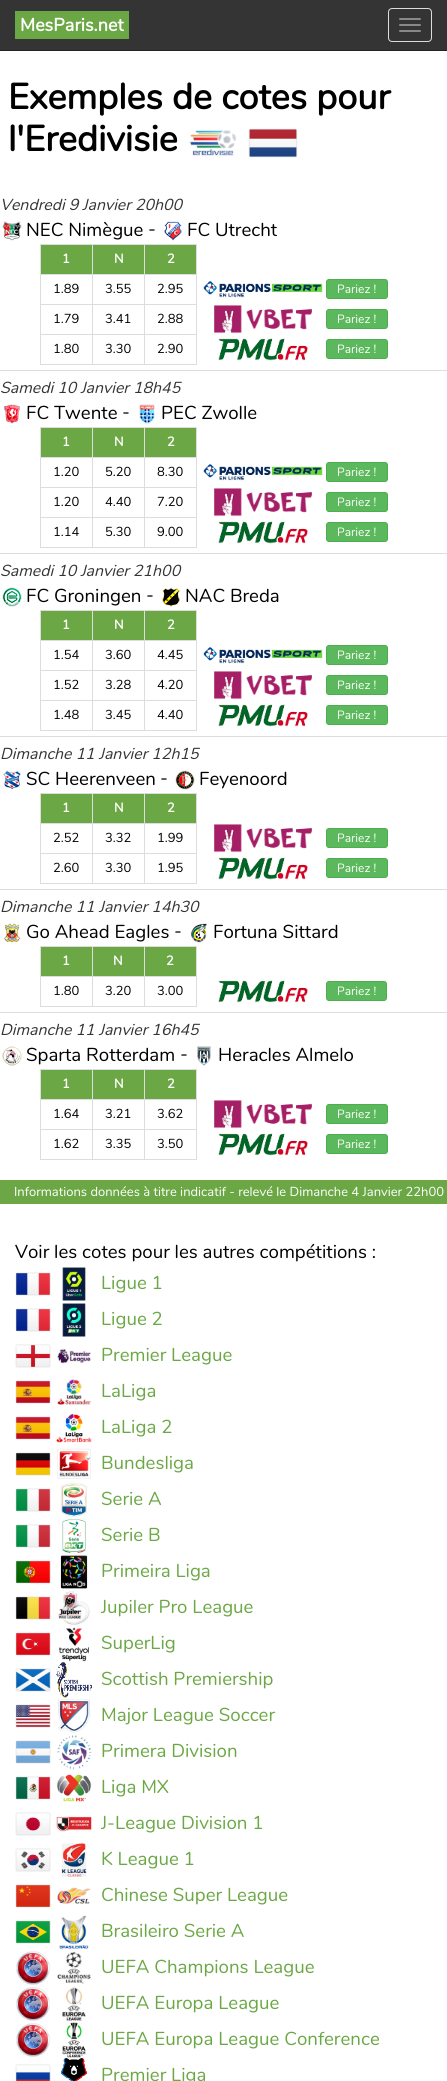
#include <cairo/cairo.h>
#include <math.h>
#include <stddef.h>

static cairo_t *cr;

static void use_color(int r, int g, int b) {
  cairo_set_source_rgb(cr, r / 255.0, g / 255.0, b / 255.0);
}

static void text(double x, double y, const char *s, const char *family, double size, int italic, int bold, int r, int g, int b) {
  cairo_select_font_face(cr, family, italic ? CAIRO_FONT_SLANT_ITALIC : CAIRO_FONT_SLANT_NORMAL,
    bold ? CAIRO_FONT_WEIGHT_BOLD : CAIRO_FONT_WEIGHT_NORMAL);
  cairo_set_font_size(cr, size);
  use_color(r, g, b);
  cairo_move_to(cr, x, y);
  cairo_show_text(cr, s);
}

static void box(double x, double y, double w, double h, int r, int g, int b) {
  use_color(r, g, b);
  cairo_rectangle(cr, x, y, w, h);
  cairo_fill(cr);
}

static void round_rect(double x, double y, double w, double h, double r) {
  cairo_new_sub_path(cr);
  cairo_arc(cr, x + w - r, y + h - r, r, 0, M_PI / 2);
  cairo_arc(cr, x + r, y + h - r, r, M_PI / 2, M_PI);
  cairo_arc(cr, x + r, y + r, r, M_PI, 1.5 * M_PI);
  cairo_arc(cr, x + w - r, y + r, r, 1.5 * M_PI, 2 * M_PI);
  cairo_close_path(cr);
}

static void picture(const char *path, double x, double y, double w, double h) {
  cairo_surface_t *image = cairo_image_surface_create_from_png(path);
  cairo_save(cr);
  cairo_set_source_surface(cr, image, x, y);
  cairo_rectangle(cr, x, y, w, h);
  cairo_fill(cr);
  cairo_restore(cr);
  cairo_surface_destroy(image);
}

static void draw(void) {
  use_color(255, 255, 255);
  cairo_paint(cr);
  box(0, 0, 447, 50, 52, 52, 52);
  box(0, 50, 447, 1, 35, 35, 35);
  box(15, 11, 114, 28, 107, 168, 69);
  round_rect(388.5, 8.5, 43, 33, 3.5);
  use_color(221, 221, 221);
  cairo_set_line_width(cr, 1);
  cairo_stroke(cr);
  use_color(136, 136, 136);
  round_rect(399, 18, 22, 2, 1);
  cairo_fill(cr);
  round_rect(399, 24, 22, 2, 1);
  cairo_fill(cr);
  round_rect(399, 30, 22, 2, 1);
  cairo_fill(cr);
  picture("img_01.png", 189, 130, 48, 26);
  picture("img_02.png", 248, 128, 50, 30);
  picture("img_03.png", 2, 221, 20, 20);
  picture("img_04.png", 164, 221, 18, 20);
  box(41, 245, 51, 29, 107, 168, 69);
  box(144, 244, 53, 1, 221, 221, 221);
  box(144, 274, 53, 1, 221, 221, 221);
  box(144, 304, 53, 1, 221, 221, 221);
  box(144, 334, 53, 1, 221, 221, 221);
  box(196, 334, 1, 31, 221, 221, 221);
  box(144, 364, 53, 1, 221, 221, 221);
  box(144, 334, 1, 31, 221, 221, 221);
  box(92, 334, 53, 1, 221, 221, 221);
  box(144, 304, 1, 31, 221, 221, 221);
  box(92, 304, 53, 1, 221, 221, 221);
  box(144, 274, 1, 31, 221, 221, 221);
  box(92, 274, 53, 1, 221, 221, 221);
  box(144, 244, 1, 31, 221, 221, 221);
  box(92, 244, 53, 1, 221, 221, 221);
  box(92, 364, 53, 1, 221, 221, 221);
  box(92, 334, 1, 31, 221, 221, 221);
  box(40, 334, 53, 1, 221, 221, 221);
  box(92, 304, 1, 31, 221, 221, 221);
  box(40, 304, 53, 1, 221, 221, 221);
  box(92, 274, 1, 31, 221, 221, 221);
  box(40, 274, 53, 1, 221, 221, 221);
  box(92, 244, 1, 31, 221, 221, 221);
  box(40, 244, 53, 1, 221, 221, 221);
  box(40, 364, 53, 1, 221, 221, 221);
  box(40, 334, 1, 31, 221, 221, 221);
  box(40, 304, 1, 31, 221, 221, 221);
  box(40, 274, 1, 31, 221, 221, 221);
  box(40, 244, 1, 31, 221, 221, 221);
  box(93, 245, 51, 29, 107, 168, 69);
  box(145, 245, 51, 29, 107, 168, 69);
  box(196, 304, 1, 31, 221, 221, 221);
  box(196, 274, 1, 31, 221, 221, 221);
  box(196, 244, 1, 31, 221, 221, 221);
  picture("img_05.png", 203, 280, 120, 18);
  use_color(92, 184, 92);
  round_rect(326.5, 279.5, 61, 19, 2.5);
  cairo_fill_preserve(cr);
  use_color(76, 174, 76);
  cairo_stroke(cr);
  picture("img_06.png", 214, 305, 98, 29);
  use_color(92, 184, 92);
  round_rect(326.5, 309.5, 61, 19, 2.5);
  cairo_fill_preserve(cr);
  use_color(76, 174, 76);
  cairo_stroke(cr);
  picture("img_07.png", 218, 338, 90, 23);
  use_color(92, 184, 92);
  round_rect(326.5, 339.5, 61, 19, 2.5);
  cairo_fill_preserve(cr);
  use_color(76, 174, 76);
  cairo_stroke(cr);
  box(0, 370, 447, 1, 221, 221, 221);
  picture("img_08.png", 4, 404, 16, 20);
  picture("img_09.png", 139, 404, 16, 20);
  box(41, 428, 51, 29, 107, 168, 69);
  box(144, 427, 53, 1, 221, 221, 221);
  box(144, 457, 53, 1, 221, 221, 221);
  box(144, 487, 53, 1, 221, 221, 221);
  box(144, 517, 53, 1, 221, 221, 221);
  box(196, 517, 1, 31, 221, 221, 221);
  box(144, 547, 53, 1, 221, 221, 221);
  box(144, 517, 1, 31, 221, 221, 221);
  box(92, 517, 53, 1, 221, 221, 221);
  box(144, 487, 1, 31, 221, 221, 221);
  box(92, 487, 53, 1, 221, 221, 221);
  box(144, 457, 1, 31, 221, 221, 221);
  box(92, 457, 53, 1, 221, 221, 221);
  box(144, 427, 1, 31, 221, 221, 221);
  box(92, 427, 53, 1, 221, 221, 221);
  box(92, 547, 53, 1, 221, 221, 221);
  box(92, 517, 1, 31, 221, 221, 221);
  box(40, 517, 53, 1, 221, 221, 221);
  box(92, 487, 1, 31, 221, 221, 221);
  box(40, 487, 53, 1, 221, 221, 221);
  box(92, 457, 1, 31, 221, 221, 221);
  box(40, 457, 53, 1, 221, 221, 221);
  box(92, 427, 1, 31, 221, 221, 221);
  box(40, 427, 53, 1, 221, 221, 221);
  box(40, 547, 53, 1, 221, 221, 221);
  box(40, 517, 1, 31, 221, 221, 221);
  box(40, 487, 1, 31, 221, 221, 221);
  box(40, 457, 1, 31, 221, 221, 221);
  box(40, 427, 1, 31, 221, 221, 221);
  box(93, 428, 51, 29, 107, 168, 69);
  box(145, 428, 51, 29, 107, 168, 69);
  box(196, 487, 1, 31, 221, 221, 221);
  box(196, 457, 1, 31, 221, 221, 221);
  box(196, 427, 1, 31, 221, 221, 221);
  picture("img_05.png", 203, 463, 120, 18);
  use_color(92, 184, 92);
  round_rect(326.5, 462.5, 61, 19, 2.5);
  cairo_fill_preserve(cr);
  use_color(76, 174, 76);
  cairo_stroke(cr);
  picture("img_06.png", 214, 488, 98, 29);
  use_color(92, 184, 92);
  round_rect(326.5, 492.5, 61, 19, 2.5);
  cairo_fill_preserve(cr);
  use_color(76, 174, 76);
  cairo_stroke(cr);
  picture("img_07.png", 218, 521, 90, 23);
  use_color(92, 184, 92);
  round_rect(326.5, 522.5, 61, 19, 2.5);
  cairo_fill_preserve(cr);
  use_color(76, 174, 76);
  cairo_stroke(cr);
  box(0, 553, 447, 1, 221, 221, 221);
  picture("img_10.png", 2, 587, 20, 20);
  picture("img_11.png", 162, 587, 18, 20);
  box(41, 611, 51, 29, 107, 168, 69);
  box(144, 610, 53, 1, 221, 221, 221);
  box(144, 640, 53, 1, 221, 221, 221);
  box(144, 670, 53, 1, 221, 221, 221);
  box(144, 700, 53, 1, 221, 221, 221);
  box(196, 700, 1, 31, 221, 221, 221);
  box(144, 730, 53, 1, 221, 221, 221);
  box(144, 700, 1, 31, 221, 221, 221);
  box(92, 700, 53, 1, 221, 221, 221);
  box(144, 670, 1, 31, 221, 221, 221);
  box(92, 670, 53, 1, 221, 221, 221);
  box(144, 640, 1, 31, 221, 221, 221);
  box(92, 640, 53, 1, 221, 221, 221);
  box(144, 610, 1, 31, 221, 221, 221);
  box(92, 610, 53, 1, 221, 221, 221);
  box(92, 730, 53, 1, 221, 221, 221);
  box(92, 700, 1, 31, 221, 221, 221);
  box(40, 700, 53, 1, 221, 221, 221);
  box(92, 670, 1, 31, 221, 221, 221);
  box(40, 670, 53, 1, 221, 221, 221);
  box(92, 640, 1, 31, 221, 221, 221);
  box(40, 640, 53, 1, 221, 221, 221);
  box(92, 610, 1, 31, 221, 221, 221);
  box(40, 610, 53, 1, 221, 221, 221);
  box(40, 730, 53, 1, 221, 221, 221);
  box(40, 700, 1, 31, 221, 221, 221);
  box(40, 670, 1, 31, 221, 221, 221);
  box(40, 640, 1, 31, 221, 221, 221);
  box(40, 610, 1, 31, 221, 221, 221);
  box(93, 611, 51, 29, 107, 168, 69);
  box(145, 611, 51, 29, 107, 168, 69);
  box(196, 670, 1, 31, 221, 221, 221);
  box(196, 640, 1, 31, 221, 221, 221);
  box(196, 610, 1, 31, 221, 221, 221);
  picture("img_05.png", 203, 646, 120, 18);
  use_color(92, 184, 92);
  round_rect(326.5, 645.5, 61, 19, 2.5);
  cairo_fill_preserve(cr);
  use_color(76, 174, 76);
  cairo_stroke(cr);
  picture("img_06.png", 214, 671, 98, 29);
  use_color(92, 184, 92);
  round_rect(326.5, 675.5, 61, 19, 2.5);
  cairo_fill_preserve(cr);
  use_color(76, 174, 76);
  cairo_stroke(cr);
  picture("img_07.png", 218, 704, 90, 23);
  use_color(92, 184, 92);
  round_rect(326.5, 705.5, 61, 19, 2.5);
  cairo_fill_preserve(cr);
  use_color(76, 174, 76);
  cairo_stroke(cr);
  box(0, 736, 447, 1, 221, 221, 221);
  picture("img_12.png", 3, 770, 18, 20);
  picture("img_13.png", 175, 770, 20, 20);
  box(41, 794, 51, 29, 107, 168, 69);
  box(144, 793, 53, 1, 221, 221, 221);
  box(144, 823, 53, 1, 221, 221, 221);
  box(144, 853, 53, 1, 221, 221, 221);
  box(196, 853, 1, 31, 221, 221, 221);
  box(144, 883, 53, 1, 221, 221, 221);
  box(144, 853, 1, 31, 221, 221, 221);
  box(92, 853, 53, 1, 221, 221, 221);
  box(144, 823, 1, 31, 221, 221, 221);
  box(92, 823, 53, 1, 221, 221, 221);
  box(144, 793, 1, 31, 221, 221, 221);
  box(92, 793, 53, 1, 221, 221, 221);
  box(92, 883, 53, 1, 221, 221, 221);
  box(92, 853, 1, 31, 221, 221, 221);
  box(40, 853, 53, 1, 221, 221, 221);
  box(92, 823, 1, 31, 221, 221, 221);
  box(40, 823, 53, 1, 221, 221, 221);
  box(92, 793, 1, 31, 221, 221, 221);
  box(40, 793, 53, 1, 221, 221, 221);
  box(40, 883, 53, 1, 221, 221, 221);
  box(40, 853, 1, 31, 221, 221, 221);
  box(40, 823, 1, 31, 221, 221, 221);
  box(40, 793, 1, 31, 221, 221, 221);
  box(93, 794, 51, 29, 107, 168, 69);
  box(145, 794, 51, 29, 107, 168, 69);
  box(196, 823, 1, 31, 221, 221, 221);
  box(196, 793, 1, 31, 221, 221, 221);
  picture("img_06.png", 214, 824, 98, 29);
  use_color(92, 184, 92);
  round_rect(326.5, 828.5, 61, 19, 2.5);
  cairo_fill_preserve(cr);
  use_color(76, 174, 76);
  cairo_stroke(cr);
  picture("img_07.png", 218, 857, 90, 23);
  use_color(92, 184, 92);
  round_rect(326.5, 858.5, 61, 19, 2.5);
  cairo_fill_preserve(cr);
  use_color(76, 174, 76);
  cairo_stroke(cr);
  box(0, 889, 447, 1, 221, 221, 221);
  picture("img_14.png", 4, 923, 17, 20);
  picture("img_15.png", 191, 923, 16, 20);
  box(41, 947, 51, 29, 107, 168, 69);
  box(144, 946, 53, 1, 221, 221, 221);
  box(144, 976, 53, 1, 221, 221, 221);
  box(196, 976, 1, 31, 221, 221, 221);
  box(144, 1006, 53, 1, 221, 221, 221);
  box(144, 976, 1, 31, 221, 221, 221);
  box(92, 976, 53, 1, 221, 221, 221);
  box(144, 946, 1, 31, 221, 221, 221);
  box(92, 946, 53, 1, 221, 221, 221);
  box(92, 1006, 53, 1, 221, 221, 221);
  box(92, 976, 1, 31, 221, 221, 221);
  box(40, 976, 53, 1, 221, 221, 221);
  box(92, 946, 1, 31, 221, 221, 221);
  box(40, 946, 53, 1, 221, 221, 221);
  box(40, 1006, 53, 1, 221, 221, 221);
  box(40, 976, 1, 31, 221, 221, 221);
  box(40, 946, 1, 31, 221, 221, 221);
  box(93, 947, 51, 29, 107, 168, 69);
  box(145, 947, 51, 29, 107, 168, 69);
  box(196, 946, 1, 31, 221, 221, 221);
  picture("img_07.png", 218, 980, 90, 23);
  use_color(92, 184, 92);
  round_rect(326.5, 981.5, 60, 19, 2.5);
  cairo_fill_preserve(cr);
  use_color(76, 174, 76);
  cairo_stroke(cr);
  box(0, 1012, 447, 1, 221, 221, 221);
  picture("img_16.png", 2, 1046, 20, 20);
  picture("img_17.png", 197, 1046, 14, 20);
  box(41, 1070, 51, 29, 107, 168, 69);
  box(144, 1069, 53, 1, 221, 221, 221);
  box(144, 1099, 53, 1, 221, 221, 221);
  box(144, 1129, 53, 1, 221, 221, 221);
  box(196, 1129, 1, 31, 221, 221, 221);
  box(144, 1159, 53, 1, 221, 221, 221);
  box(144, 1129, 1, 31, 221, 221, 221);
  box(92, 1129, 53, 1, 221, 221, 221);
  box(144, 1099, 1, 31, 221, 221, 221);
  box(92, 1099, 53, 1, 221, 221, 221);
  box(144, 1069, 1, 31, 221, 221, 221);
  box(92, 1069, 53, 1, 221, 221, 221);
  box(92, 1159, 53, 1, 221, 221, 221);
  box(92, 1129, 1, 31, 221, 221, 221);
  box(40, 1129, 53, 1, 221, 221, 221);
  box(92, 1099, 1, 31, 221, 221, 221);
  box(40, 1099, 53, 1, 221, 221, 221);
  box(92, 1069, 1, 31, 221, 221, 221);
  box(40, 1069, 53, 1, 221, 221, 221);
  box(40, 1159, 53, 1, 221, 221, 221);
  box(40, 1129, 1, 31, 221, 221, 221);
  box(40, 1099, 1, 31, 221, 221, 221);
  box(40, 1069, 1, 31, 221, 221, 221);
  box(93, 1070, 51, 29, 107, 168, 69);
  box(145, 1070, 51, 29, 107, 168, 69);
  box(196, 1099, 1, 31, 221, 221, 221);
  box(196, 1069, 1, 31, 221, 221, 221);
  picture("img_06.png", 214, 1100, 98, 29);
  use_color(92, 184, 92);
  round_rect(326.5, 1104.5, 61, 19, 2.5);
  cairo_fill_preserve(cr);
  use_color(76, 174, 76);
  cairo_stroke(cr);
  picture("img_07.png", 218, 1133, 90, 23);
  use_color(92, 184, 92);
  round_rect(326.5, 1134.5, 61, 19, 2.5);
  cairo_fill_preserve(cr);
  use_color(76, 174, 76);
  cairo_stroke(cr);
  box(0, 1180, 447, 24, 107, 168, 69);
  picture("img_18.png", 15, 1272, 36, 24);
  picture("img_19.png", 62, 1267, 24, 34);
  picture("img_18.png", 15, 1308, 36, 24);
  picture("img_20.png", 62, 1303, 24, 34);
  picture("img_21.png", 15, 1344, 36, 24);
  picture("img_22.png", 57, 1348, 34, 16);
  picture("img_23.png", 15, 1380, 36, 24);
  picture("img_24.png", 57, 1379, 34, 26);
  picture("img_23.png", 15, 1416, 36, 24);
  picture("img_25.png", 56, 1413, 36, 30);
  picture("img_26.png", 15, 1452, 36, 24);
  picture("img_27.png", 57, 1448, 34, 31);
  picture("img_28.png", 15, 1488, 36, 24);
  picture("img_29.png", 60, 1483, 27, 34);
  picture("img_28.png", 15, 1524, 36, 24);
  picture("img_30.png", 62, 1518, 24, 36);
  picture("img_31.png", 15, 1560, 36, 24);
  picture("img_32.png", 60, 1555, 28, 34);
  picture("img_33.png", 15, 1596, 36, 24);
  picture("img_34.png", 58, 1591, 32, 34);
  picture("img_35.png", 15, 1632, 36, 24);
  picture("img_36.png", 59, 1627, 30, 35);
  picture("img_37.png", 15, 1668, 36, 24);
  picture("img_38.png", 56, 1662, 36, 36);
  picture("img_39.png", 15, 1704, 36, 24);
  picture("img_40.png", 58, 1699, 32, 34);
  picture("img_41.png", 15, 1740, 36, 24);
  picture("img_42.png", 57, 1735, 35, 35);
  picture("img_43.png", 15, 1776, 36, 24);
  picture("img_44.png", 56, 1774, 36, 28);
  picture("img_45.png", 15, 1812, 36, 24);
  picture("img_46.png", 56, 1816, 36, 16);
  picture("img_47.png", 15, 1848, 36, 24);
  picture("img_48.png", 61, 1843, 26, 34);
  picture("img_49.png", 15, 1884, 36, 24);
  picture("img_50.png", 57, 1887, 34, 18);
  picture("img_51.png", 15, 1920, 36, 24);
  picture("img_52.png", 59, 1915, 30, 34);
  picture("img_53.png", 16, 1951, 34, 34);
  picture("img_54.png", 57, 1951, 34, 33);
  picture("img_53.png", 16, 1987, 34, 34);
  picture("img_55.png", 62, 1987, 24, 34);
  picture("img_53.png", 16, 2023, 34, 34);
  picture("img_56.png", 62, 2022, 24, 36);
  picture("img_57.png", 15, 2064, 36, 17);
  picture("img_58.png", 61, 2058, 26, 23);
  text(20, 31, "MesParis.net", "Nunito", 18, 0, 1, 255, 255, 255);
  text(8, 109, "Exemples de cotes pour", "Nunito", 36, 0, 1, 0, 0, 0);
  text(8, 151, "l'Eredivisie", "Nunito", 36, 0, 1, 0, 0, 0);
  text(0, 210, "Vendredi 9 Janvier 20h00", "Nunito", 15.9, 1, 0, 52, 52, 52);
  text(26, 236, "NEC Nimègue", "Nunito", 18.7, 0, 0, 0, 0, 0);
  text(148, 235, "-", "Nunito", 18.7, 0, 0, 0, 0, 0);
  text(187, 236, "FC Utrecht", "Nunito", 18.7, 0, 0, 0, 0, 0);
  text(62, 263, "1", "Nunito", 13, 0, 1, 255, 255, 255);
  text(114, 263, "N", "Nunito", 13, 0, 1, 255, 255, 255);
  text(167, 263, "2", "Nunito", 13, 0, 1, 255, 255, 255);
  text(53, 293, "1.89", "Nunito", 13, 0, 0, 0, 0, 0);
  text(105, 293, "3.55", "Nunito", 13, 0, 0, 0, 0, 0);
  text(157, 293, "2.95", "Nunito", 13, 0, 0, 0, 0, 0);
  text(337, 293, "Pariez !", "Nunito", 12, 0, 0, 255, 255, 255);
  text(53, 323, "1.79", "Nunito", 13, 0, 0, 0, 0, 0);
  text(105, 323, "3.41", "Nunito", 13, 0, 0, 0, 0, 0);
  text(157, 323, "2.88", "Nunito", 13, 0, 0, 0, 0, 0);
  text(337, 323, "Pariez !", "Nunito", 12, 0, 0, 255, 255, 255);
  text(53, 353, "1.80", "Nunito", 13, 0, 0, 0, 0, 0);
  text(105, 353, "3.30", "Nunito", 13, 0, 0, 0, 0, 0);
  text(157, 353, "2.90", "Nunito", 13, 0, 0, 0, 0, 0);
  text(337, 353, "Pariez !", "Nunito", 12, 0, 0, 255, 255, 255);
  text(0, 393, "Samedi 10 Janvier 18h45", "Nunito", 15.9, 1, 0, 52, 52, 52);
  text(26, 419, "FC Twente", "Nunito", 18.7, 0, 0, 0, 0, 0);
  text(122, 418, "-", "Nunito", 18.7, 0, 0, 0, 0, 0);
  text(161, 419, "PEC Zwolle", "Nunito", 18.7, 0, 0, 0, 0, 0);
  text(62, 446, "1", "Nunito", 13, 0, 1, 255, 255, 255);
  text(114, 446, "N", "Nunito", 13, 0, 1, 255, 255, 255);
  text(167, 446, "2", "Nunito", 13, 0, 1, 255, 255, 255);
  text(53, 476, "1.20", "Nunito", 13, 0, 0, 0, 0, 0);
  text(105, 476, "5.20", "Nunito", 13, 0, 0, 0, 0, 0);
  text(157, 476, "8.30", "Nunito", 13, 0, 0, 0, 0, 0);
  text(337, 476, "Pariez !", "Nunito", 12, 0, 0, 255, 255, 255);
  text(53, 506, "1.20", "Nunito", 13, 0, 0, 0, 0, 0);
  text(105, 506, "4.40", "Nunito", 13, 0, 0, 0, 0, 0);
  text(157, 506, "7.20", "Nunito", 13, 0, 0, 0, 0, 0);
  text(337, 506, "Pariez !", "Nunito", 12, 0, 0, 255, 255, 255);
  text(53, 536, "1.14", "Nunito", 13, 0, 0, 0, 0, 0);
  text(105, 536, "5.30", "Nunito", 13, 0, 0, 0, 0, 0);
  text(157, 536, "9.00", "Nunito", 13, 0, 0, 0, 0, 0);
  text(337, 536, "Pariez !", "Nunito", 12, 0, 0, 255, 255, 255);
  text(0, 576, "Samedi 10 Janvier 21h00", "Nunito", 15.9, 1, 0, 52, 52, 52);
  text(26, 602, "FC Groningen", "Nunito", 18.7, 0, 0, 0, 0, 0);
  text(146, 601, "-", "Nunito", 18.7, 0, 0, 0, 0, 0);
  text(185, 602, "NAC Breda", "Nunito", 18.7, 0, 0, 0, 0, 0);
  text(62, 629, "1", "Nunito", 13, 0, 1, 255, 255, 255);
  text(114, 629, "N", "Nunito", 13, 0, 1, 255, 255, 255);
  text(167, 629, "2", "Nunito", 13, 0, 1, 255, 255, 255);
  text(53, 659, "1.54", "Nunito", 13, 0, 0, 0, 0, 0);
  text(105, 659, "3.60", "Nunito", 13, 0, 0, 0, 0, 0);
  text(157, 659, "4.45", "Nunito", 13, 0, 0, 0, 0, 0);
  text(337, 659, "Pariez !", "Nunito", 12, 0, 0, 255, 255, 255);
  text(53, 689, "1.52", "Nunito", 13, 0, 0, 0, 0, 0);
  text(105, 689, "3.28", "Nunito", 13, 0, 0, 0, 0, 0);
  text(157, 689, "4.20", "Nunito", 13, 0, 0, 0, 0, 0);
  text(337, 689, "Pariez !", "Nunito", 12, 0, 0, 255, 255, 255);
  text(53, 719, "1.48", "Nunito", 13, 0, 0, 0, 0, 0);
  text(105, 719, "3.45", "Nunito", 13, 0, 0, 0, 0, 0);
  text(157, 719, "4.40", "Nunito", 13, 0, 0, 0, 0, 0);
  text(337, 719, "Pariez !", "Nunito", 12, 0, 0, 255, 255, 255);
  text(0, 759, "Dimanche 11 Janvier 12h15", "Nunito", 15.9, 1, 0, 52, 52, 52);
  text(26, 785, "SC Heerenveen", "Nunito", 18.7, 0, 0, 0, 0, 0);
  text(160, 784, "-", "Nunito", 18.7, 0, 0, 0, 0, 0);
  text(199, 785, "Feyenoord", "Nunito", 18.7, 0, 0, 0, 0, 0);
  text(62, 812, "1", "Nunito", 13, 0, 1, 255, 255, 255);
  text(114, 812, "N", "Nunito", 13, 0, 1, 255, 255, 255);
  text(167, 812, "2", "Nunito", 13, 0, 1, 255, 255, 255);
  text(53, 842, "2.52", "Nunito", 13, 0, 0, 0, 0, 0);
  text(105, 842, "3.32", "Nunito", 13, 0, 0, 0, 0, 0);
  text(157, 842, "1.99", "Nunito", 13, 0, 0, 0, 0, 0);
  text(337, 842, "Pariez !", "Nunito", 12, 0, 0, 255, 255, 255);
  text(53, 872, "2.60", "Nunito", 13, 0, 0, 0, 0, 0);
  text(105, 872, "3.30", "Nunito", 13, 0, 0, 0, 0, 0);
  text(157, 872, "1.95", "Nunito", 13, 0, 0, 0, 0, 0);
  text(337, 872, "Pariez !", "Nunito", 12, 0, 0, 255, 255, 255);
  text(0, 912, "Dimanche 11 Janvier 14h30", "Nunito", 15.9, 1, 0, 52, 52, 52);
  text(26, 938, "Go Ahead Eagles", "Nunito", 18.7, 0, 0, 0, 0, 0);
  text(174, 937, "-", "Nunito", 18.7, 0, 0, 0, 0, 0);
  text(213, 938, "Fortuna Sittard", "Nunito", 18.7, 0, 0, 0, 0, 0);
  text(62, 965, "1", "Nunito", 13, 0, 1, 255, 255, 255);
  text(113, 965, "N", "Nunito", 13, 0, 1, 255, 255, 255);
  text(166, 965, "2", "Nunito", 13, 0, 1, 255, 255, 255);
  text(53, 995, "1.80", "Nunito", 13, 0, 0, 0, 0, 0);
  text(105, 995, "3.20", "Nunito", 13, 0, 0, 0, 0, 0);
  text(157, 995, "3.00", "Nunito", 13, 0, 0, 0, 0, 0);
  text(337, 995, "Pariez !", "Nunito", 12, 0, 0, 255, 255, 255);
  text(0, 1035, "Dimanche 11 Janvier 16h45", "Nunito", 15.9, 1, 0, 52, 52, 52);
  text(26, 1061, "Sparta Rotterdam", "Nunito", 18.7, 0, 0, 0, 0, 0);
  text(180, 1060, "-", "Nunito", 18.7, 0, 0, 0, 0, 0);
  text(218, 1061, "Heracles Almelo", "Nunito", 18.7, 0, 0, 0, 0, 0);
  text(62, 1088, "1", "Nunito", 13, 0, 1, 255, 255, 255);
  text(114, 1088, "N", "Nunito", 13, 0, 1, 255, 255, 255);
  text(167, 1088, "2", "Nunito", 13, 0, 1, 255, 255, 255);
  text(53, 1118, "1.64", "Nunito", 13, 0, 0, 0, 0, 0);
  text(105, 1118, "3.21", "Nunito", 13, 0, 0, 0, 0, 0);
  text(157, 1118, "3.62", "Nunito", 13, 0, 0, 0, 0, 0);
  text(337, 1118, "Pariez !", "Nunito", 12, 0, 0, 255, 255, 255);
  text(53, 1148, "1.62", "Nunito", 13, 0, 0, 0, 0, 0);
  text(105, 1148, "3.35", "Nunito", 13, 0, 0, 0, 0, 0);
  text(157, 1148, "3.50", "Nunito", 13, 0, 0, 0, 0, 0);
  text(337, 1148, "Pariez !", "Nunito", 12, 0, 0, 255, 255, 255);
  text(14, 1196, "Informations données à titre indicatif - relevé le Dimanche 4 Janvier 22h00", "Nunito", 13, 0, 0, 255, 255, 255);
  text(15, 1258, "Voir les cotes pour les autres compétitions :", "Nunito", 18.7, 0, 0, 0, 0, 0);
  text(101, 1289, "Ligue 1", "Nunito", 18.7, 0, 0, 107, 168, 69);
  text(101, 1325, "Ligue 2", "Nunito", 18.7, 0, 0, 107, 168, 69);
  text(101, 1361, "Premier League", "Nunito", 18.7, 0, 0, 107, 168, 69);
  text(101, 1397, "LaLiga", "Nunito", 18.7, 0, 0, 107, 168, 69);
  text(101, 1433, "LaLiga 2", "Nunito", 18.7, 0, 0, 107, 168, 69);
  text(101, 1469, "Bundesliga", "Nunito", 18.7, 0, 0, 107, 168, 69);
  text(101, 1505, "Serie A", "Nunito", 18.7, 0, 0, 107, 168, 69);
  text(101, 1541, "Serie B", "Nunito", 18.7, 0, 0, 107, 168, 69);
  text(101, 1577, "Primeira Liga", "Nunito", 18.7, 0, 0, 107, 168, 69);
  text(101, 1613, "Jupiler Pro League", "Nunito", 18.7, 0, 0, 107, 168, 69);
  text(101, 1649, "SuperLig", "Nunito", 18.7, 0, 0, 107, 168, 69);
  text(101, 1685, "Scottish Premiership", "Nunito", 18.7, 0, 0, 107, 168, 69);
  text(101, 1721, "Major League Soccer", "Nunito", 18.7, 0, 0, 107, 168, 69);
  text(101, 1757, "Primera Division", "Nunito", 18.7, 0, 0, 107, 168, 69);
  text(101, 1793, "Liga MX", "Nunito", 18.7, 0, 0, 107, 168, 69);
  text(101, 1829, "J-League Division 1", "Nunito", 18.7, 0, 0, 107, 168, 69);
  text(101, 1865, "K League 1", "Nunito", 18.7, 0, 0, 107, 168, 69);
  text(101, 1901, "Chinese Super League", "Nunito", 18.7, 0, 0, 107, 168, 69);
  text(101, 1937, "Brasileiro Serie A", "Nunito", 18.7, 0, 0, 107, 168, 69);
  text(101, 1973, "UEFA Champions League", "Nunito", 18.7, 0, 0, 107, 168, 69);
  text(101, 2009, "UEFA Europa League", "Nunito", 18.7, 0, 0, 107, 168, 69);
  text(101, 2045, "UEFA Europa League Conference", "Nunito", 18.7, 0, 0, 107, 168, 69);
  text(101, 2081, "Premier Liga", "Nunito", 18.7, 0, 0, 107, 168, 69);
}

int main(void) {
  cairo_surface_t *surface = cairo_image_surface_create(CAIRO_FORMAT_RGB24, 447, 2081);
  cr = cairo_create(surface);
  cairo_font_options_t *options = cairo_font_options_create();
  cairo_font_options_set_hint_metrics(options, CAIRO_HINT_METRICS_OFF);
  cairo_font_options_set_hint_style(options, CAIRO_HINT_STYLE_NONE);
  cairo_set_font_options(cr, options);
  cairo_set_miter_limit(cr, 4);
  draw();
  cairo_surface_write_to_png(surface, "out.png");
  cairo_font_options_destroy(options);
  cairo_destroy(cr);
  cairo_surface_destroy(surface);
  return 0;
}
